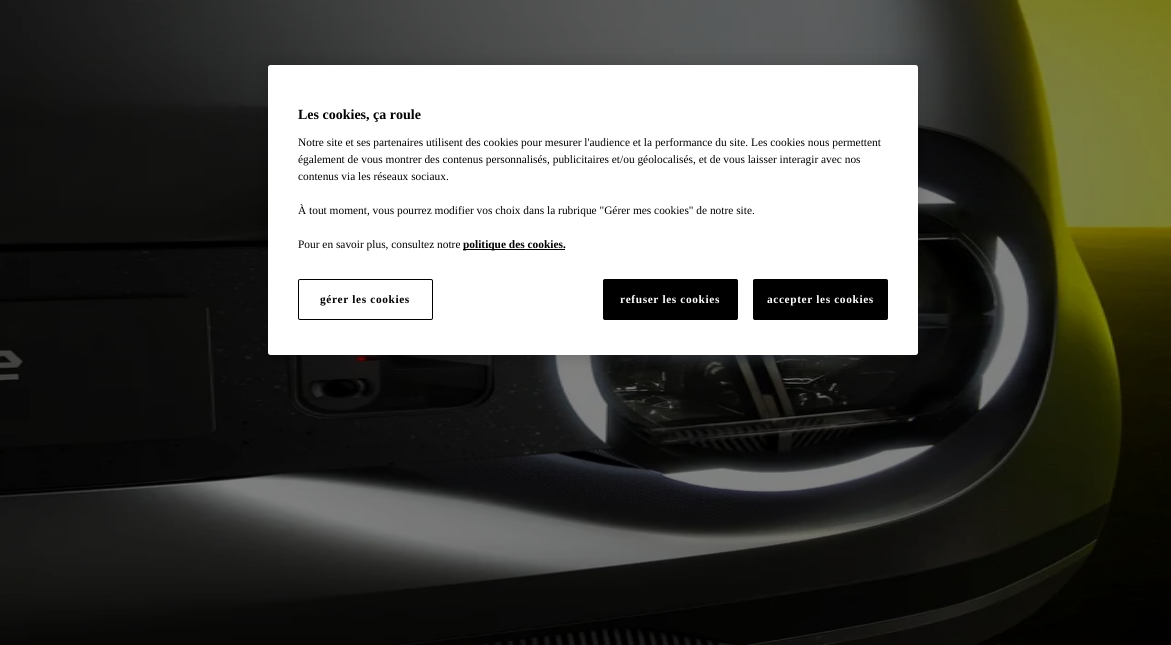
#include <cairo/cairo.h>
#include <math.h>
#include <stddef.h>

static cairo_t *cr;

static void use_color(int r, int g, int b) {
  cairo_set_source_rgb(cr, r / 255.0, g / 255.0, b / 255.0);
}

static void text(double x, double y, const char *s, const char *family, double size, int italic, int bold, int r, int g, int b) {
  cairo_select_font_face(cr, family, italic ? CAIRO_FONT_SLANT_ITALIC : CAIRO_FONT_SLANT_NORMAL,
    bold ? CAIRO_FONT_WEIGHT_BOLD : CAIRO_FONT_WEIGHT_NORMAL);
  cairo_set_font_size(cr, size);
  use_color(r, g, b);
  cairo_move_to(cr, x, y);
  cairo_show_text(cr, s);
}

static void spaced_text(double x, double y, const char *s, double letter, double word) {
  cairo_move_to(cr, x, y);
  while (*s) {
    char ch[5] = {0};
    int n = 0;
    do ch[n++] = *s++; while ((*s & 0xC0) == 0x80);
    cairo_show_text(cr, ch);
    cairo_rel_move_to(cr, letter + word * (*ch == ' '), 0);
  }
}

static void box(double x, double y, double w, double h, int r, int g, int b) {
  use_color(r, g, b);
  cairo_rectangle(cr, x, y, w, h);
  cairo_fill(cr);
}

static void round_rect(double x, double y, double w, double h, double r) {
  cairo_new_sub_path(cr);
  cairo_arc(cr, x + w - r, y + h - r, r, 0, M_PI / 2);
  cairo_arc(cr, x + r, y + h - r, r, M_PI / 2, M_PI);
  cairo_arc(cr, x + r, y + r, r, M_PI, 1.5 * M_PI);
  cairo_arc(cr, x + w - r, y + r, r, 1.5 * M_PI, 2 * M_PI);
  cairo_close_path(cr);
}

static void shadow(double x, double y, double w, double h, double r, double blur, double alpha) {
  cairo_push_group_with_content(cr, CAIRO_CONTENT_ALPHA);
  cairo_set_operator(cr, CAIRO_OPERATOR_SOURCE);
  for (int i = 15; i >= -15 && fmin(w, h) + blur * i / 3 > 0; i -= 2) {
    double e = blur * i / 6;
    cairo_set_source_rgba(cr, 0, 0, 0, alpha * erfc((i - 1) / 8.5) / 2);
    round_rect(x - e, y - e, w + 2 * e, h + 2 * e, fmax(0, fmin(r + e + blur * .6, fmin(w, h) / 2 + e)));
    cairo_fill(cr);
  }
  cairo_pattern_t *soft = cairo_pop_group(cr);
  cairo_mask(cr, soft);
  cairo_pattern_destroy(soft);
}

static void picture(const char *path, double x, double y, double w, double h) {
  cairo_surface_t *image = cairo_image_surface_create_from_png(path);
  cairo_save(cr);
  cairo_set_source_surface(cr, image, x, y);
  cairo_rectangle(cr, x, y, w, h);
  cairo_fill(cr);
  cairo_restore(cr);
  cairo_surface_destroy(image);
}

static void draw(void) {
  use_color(255, 255, 255);
  cairo_paint(cr);
  picture("img_01.png", 0, 0, 1171, 645);
  use_color(0, 0, 0);
  shadow(268, 65, 650, 290, 2.5, 9, 0.2);
  use_color(255, 255, 255);
  round_rect(268, 65, 650, 290, 2.5);
  cairo_fill(cr);
  box(463, 249, 102, 1, 0, 0, 0);
  round_rect(298.5, 279.5, 134, 40, 1.5);
  cairo_set_line_width(cr, 1);
  cairo_stroke(cr);
  round_rect(603.5, 279.5, 134, 40, 1.5);
  cairo_fill_preserve(cr);
  cairo_stroke(cr);
  round_rect(753.5, 279.5, 134, 40, 1.5);
  cairo_fill_preserve(cr);
  cairo_stroke(cr);
  text(298, 119, "Les cookies, ça roule", "Liberation Serif", 14, 0, 1, 0, 0, 0);
  text(298, 146, "Notre site et ses partenaires utilisent des cookies pour mesurer l'audience et la performance du site. Les cookies nous permettent", "Liberation Serif", 11.38, 0, 0, 0, 0, 0);
  text(298, 163, "également de vous montrer des contenus personnalisés, publicitaires et/ou géolocalisés, et de vous laisser interagir avec nos", "Liberation Serif", 11.38, 0, 0, 0, 0, 0);
  text(298, 180, "contenus via les réseaux sociaux.", "Liberation Serif", 11.38, 0, 0, 0, 0, 0);
  text(298, 214, "À tout moment, vous pourrez modifier vos choix dans la rubrique \"Gérer mes cookies\" de notre site.", "Liberation Serif", 11.38, 0, 0, 0, 0, 0);
  text(298, 248, "Pour en savoir plus, consultez notre", "Liberation Serif", 11.38, 0, 0, 0, 0, 0);
  text(463, 248, "politique des cookies.", "Liberation Serif", 11.38, 0, 1, 0, 0, 0);
  spaced_text(320, 303, "gérer les cookies", 0.6, 0);
  use_color(255, 255, 255);
  spaced_text(620, 303, "refuser les cookies", 0.6, 0);
  spaced_text(767, 303, "accepter les cookies", 0.6, 0);
}

int main(void) {
  cairo_surface_t *surface = cairo_image_surface_create(CAIRO_FORMAT_RGB24, 1171, 645);
  cr = cairo_create(surface);
  cairo_font_options_t *options = cairo_font_options_create();
  cairo_font_options_set_hint_metrics(options, CAIRO_HINT_METRICS_OFF);
  cairo_font_options_set_hint_style(options, CAIRO_HINT_STYLE_NONE);
  cairo_set_font_options(cr, options);
  cairo_set_miter_limit(cr, 4);
  draw();
  cairo_surface_write_to_png(surface, "out.png");
  cairo_font_options_destroy(options);
  cairo_destroy(cr);
  cairo_surface_destroy(surface);
  return 0;
}
